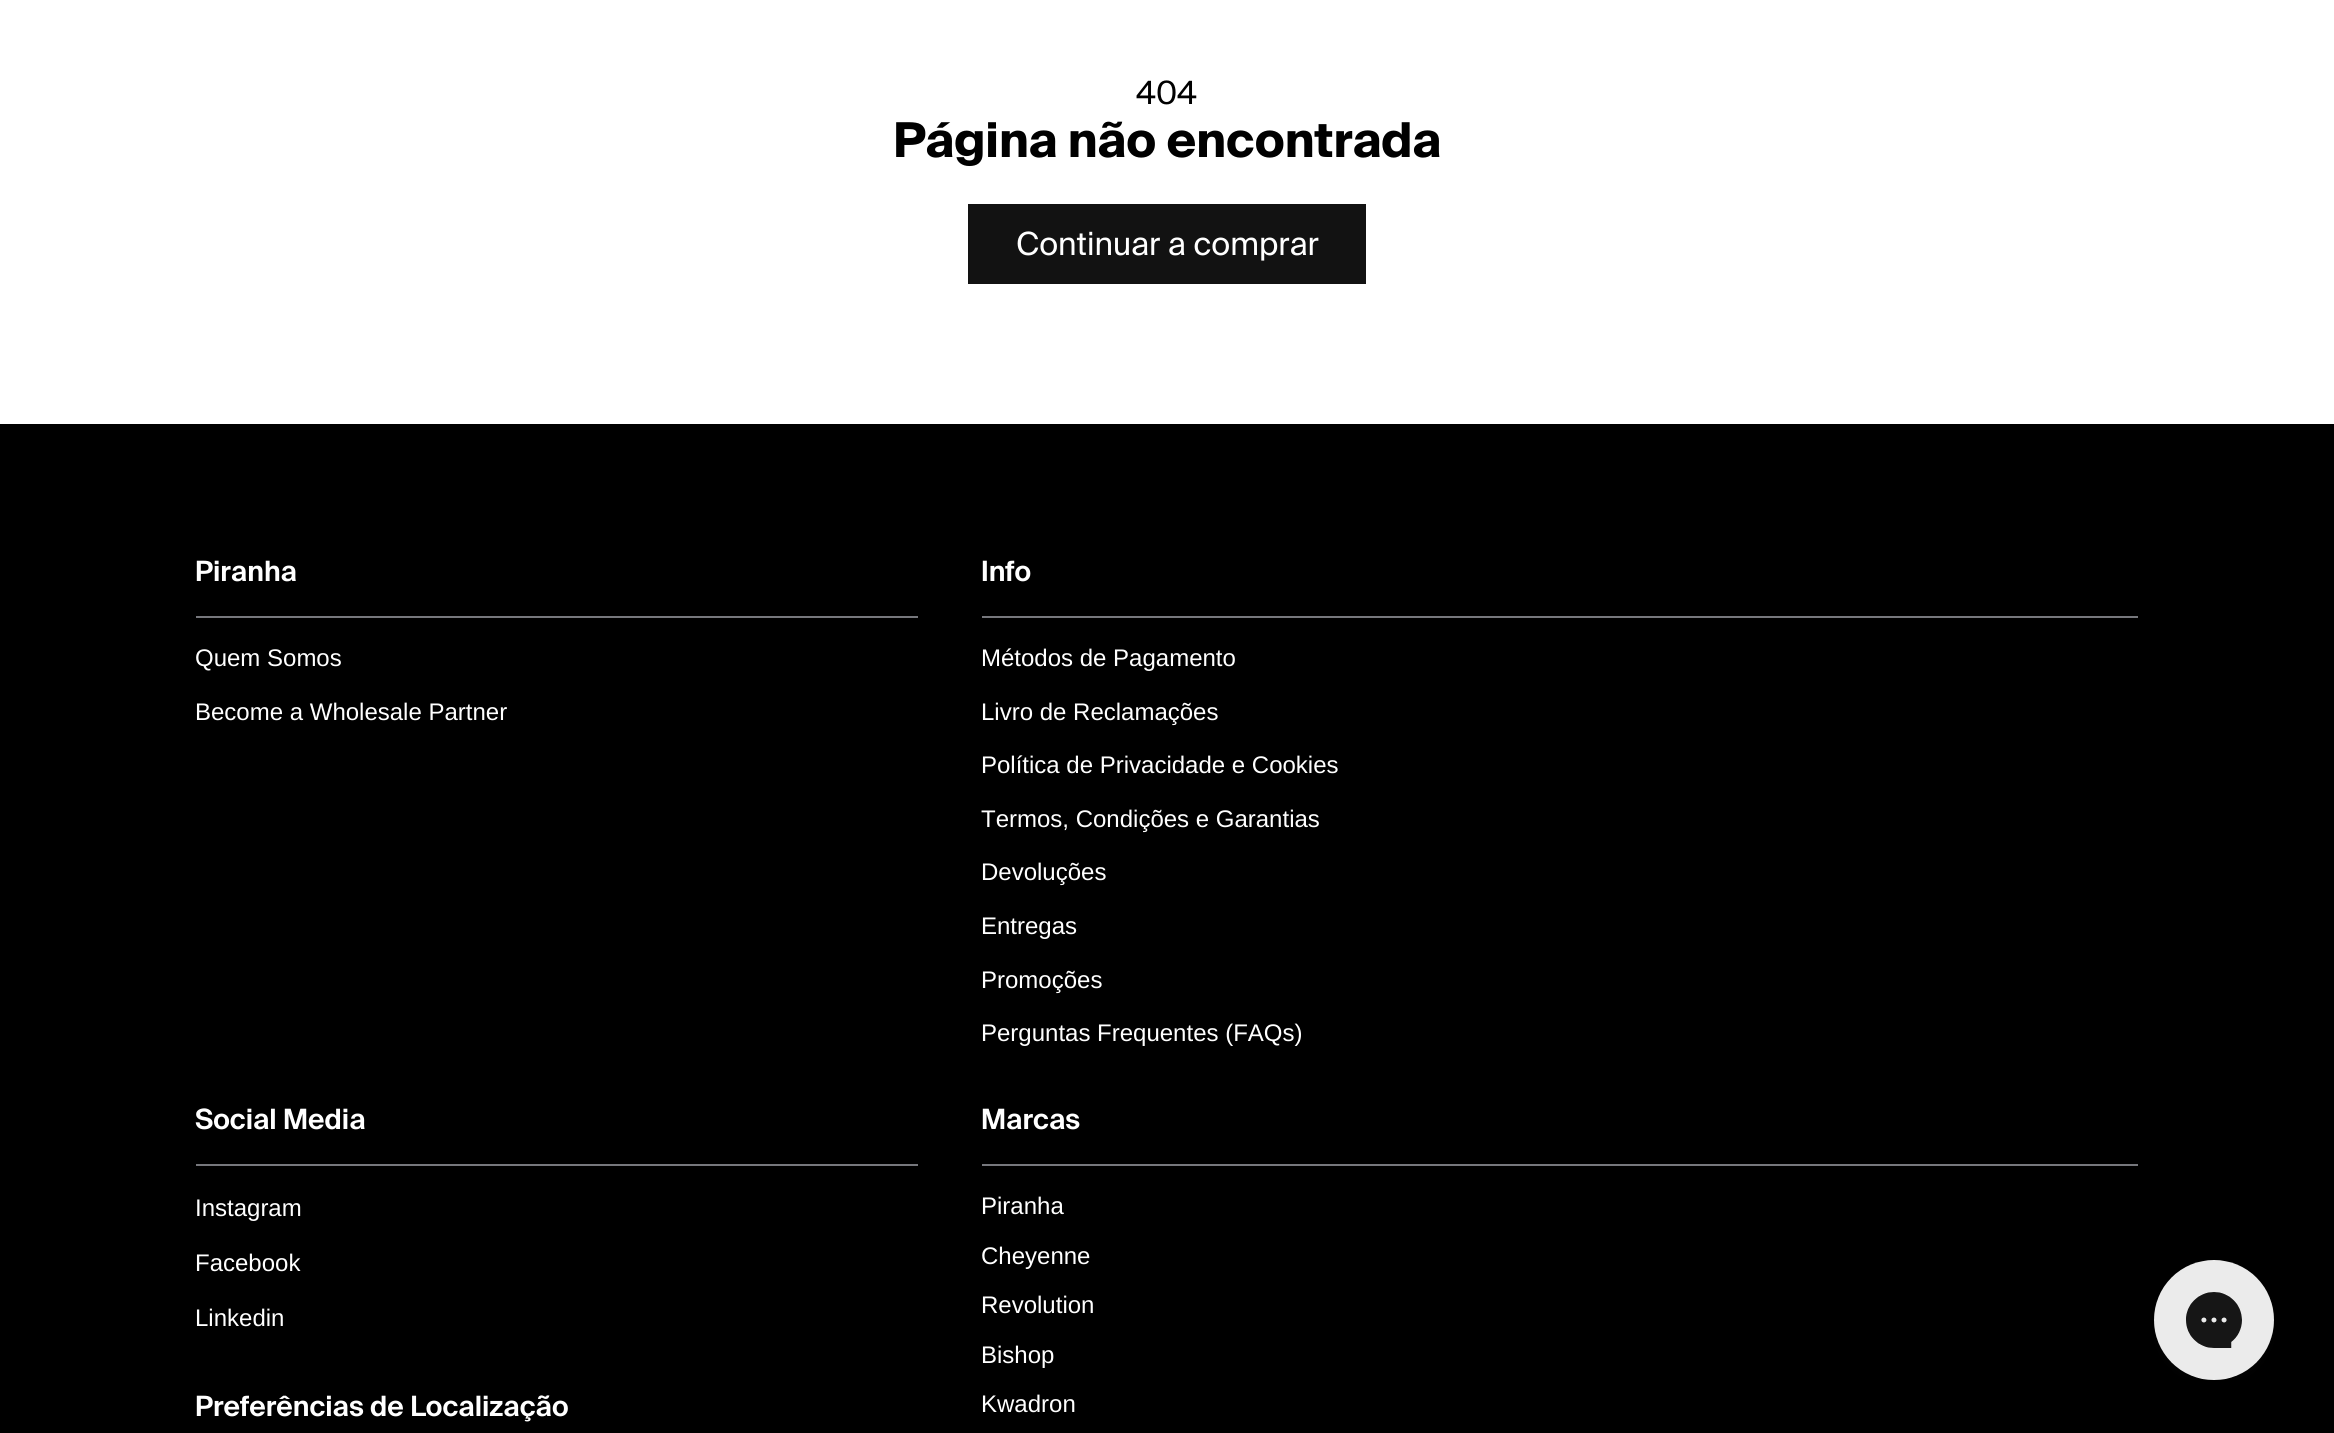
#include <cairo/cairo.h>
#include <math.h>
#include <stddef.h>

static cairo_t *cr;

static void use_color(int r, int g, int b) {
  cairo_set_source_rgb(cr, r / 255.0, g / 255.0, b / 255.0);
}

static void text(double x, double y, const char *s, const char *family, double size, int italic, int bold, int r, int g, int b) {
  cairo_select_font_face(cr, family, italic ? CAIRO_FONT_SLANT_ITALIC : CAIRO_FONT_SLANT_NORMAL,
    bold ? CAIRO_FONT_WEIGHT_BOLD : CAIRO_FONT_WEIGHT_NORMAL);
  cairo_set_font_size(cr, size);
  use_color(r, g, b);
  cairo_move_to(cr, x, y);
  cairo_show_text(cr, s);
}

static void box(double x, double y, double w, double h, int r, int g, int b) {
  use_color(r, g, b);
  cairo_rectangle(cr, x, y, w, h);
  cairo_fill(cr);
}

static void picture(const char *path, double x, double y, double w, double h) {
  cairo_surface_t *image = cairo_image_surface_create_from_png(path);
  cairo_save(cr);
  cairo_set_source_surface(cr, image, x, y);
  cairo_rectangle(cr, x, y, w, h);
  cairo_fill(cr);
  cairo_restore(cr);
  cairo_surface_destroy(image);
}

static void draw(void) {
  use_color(255, 255, 255);
  cairo_paint(cr);
  box(968, 204, 398, 80, 18, 18, 18);
  box(0, 424, 2334, 1009, 0, 0, 0);
  box(196, 616, 722, 2, 118, 119, 124);
  box(982, 616, 1156, 2, 118, 119, 124);
  box(196, 1164, 722, 2, 118, 119, 124);
  box(982, 1164, 1156, 2, 118, 119, 124);
  picture("img_01.png", 2154, 1260, 120, 120);
  text(1136, 104, "404", "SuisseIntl", 32, 0, 0, 0, 0, 0);
  text(893, 157, "Página não encontrada", "SuisseIntl", 48, 0, 1, 0, 0, 0);
  text(1016, 255, "Continuar a comprar", "SuisseIntl", 32, 0, 0, 255, 255, 255);
  text(195, 581, "Piranha", "SuisseIntl SemiBold", 28, 0, 0, 255, 255, 255);
  text(195, 666, "Quem Somos", "Liberation Sans", 24, 0, 0, 255, 255, 255);
  text(195, 720, "Become a Wholesale Partner", "Liberation Sans", 24, 0, 0, 255, 255, 255);
  text(981, 581, "Info", "SuisseIntl SemiBold", 28, 0, 0, 255, 255, 255);
  text(981, 666, "Métodos de Pagamento", "Liberation Sans", 24, 0, 0, 255, 255, 255);
  text(981, 720, "Livro de Reclamações", "Liberation Sans", 24, 0, 0, 255, 255, 255);
  text(981, 773, "Política de Privacidade e Cookies", "Liberation Sans", 24, 0, 0, 255, 255, 255);
  text(981, 827, "Termos, Condições e Garantias", "Liberation Sans", 24, 0, 0, 255, 255, 255);
  text(981, 880, "Devoluções", "Liberation Sans", 24, 0, 0, 255, 255, 255);
  text(981, 934, "Entregas", "Liberation Sans", 24, 0, 0, 255, 255, 255);
  text(981, 988, "Promoções", "Liberation Sans", 24, 0, 0, 255, 255, 255);
  text(981, 1041, "Perguntas Frequentes (FAQs)", "Liberation Sans", 24, 0, 0, 255, 255, 255);
  text(195, 1129, "Social Media", "SuisseIntl SemiBold", 28, 0, 0, 255, 255, 255);
  text(195, 1216, "Instagram", "Liberation Sans", 24, 0, 0, 255, 255, 255);
  text(195, 1271, "Facebook", "Liberation Sans", 24, 0, 0, 255, 255, 255);
  text(195, 1326, "Linkedin", "Liberation Sans", 24, 0, 0, 255, 255, 255);
  text(981, 1129, "Marcas", "SuisseIntl SemiBold", 28, 0, 0, 255, 255, 255);
  text(981, 1214, "Piranha", "Liberation Sans", 24, 0, 0, 255, 255, 255);
  text(981, 1264, "Cheyenne", "Liberation Sans", 24, 0, 0, 255, 255, 255);
  text(981, 1313, "Revolution", "Liberation Sans", 24, 0, 0, 255, 255, 255);
  text(981, 1363, "Bishop", "Liberation Sans", 24, 0, 0, 255, 255, 255);
  text(981, 1412, "Kwadron", "Liberation Sans", 24, 0, 0, 255, 255, 255);
  text(195, 1416, "Preferências de Localização", "SuisseIntl SemiBold", 28, 0, 0, 255, 255, 255);
}

int main(void) {
  cairo_surface_t *surface = cairo_image_surface_create(CAIRO_FORMAT_RGB24, 2334, 1433);
  cr = cairo_create(surface);
  cairo_font_options_t *options = cairo_font_options_create();
  cairo_font_options_set_hint_metrics(options, CAIRO_HINT_METRICS_OFF);
  cairo_font_options_set_hint_style(options, CAIRO_HINT_STYLE_NONE);
  cairo_set_font_options(cr, options);
  cairo_set_miter_limit(cr, 4);
  draw();
  cairo_surface_write_to_png(surface, "out.png");
  cairo_font_options_destroy(options);
  cairo_destroy(cr);
  cairo_surface_destroy(surface);
  return 0;
}
